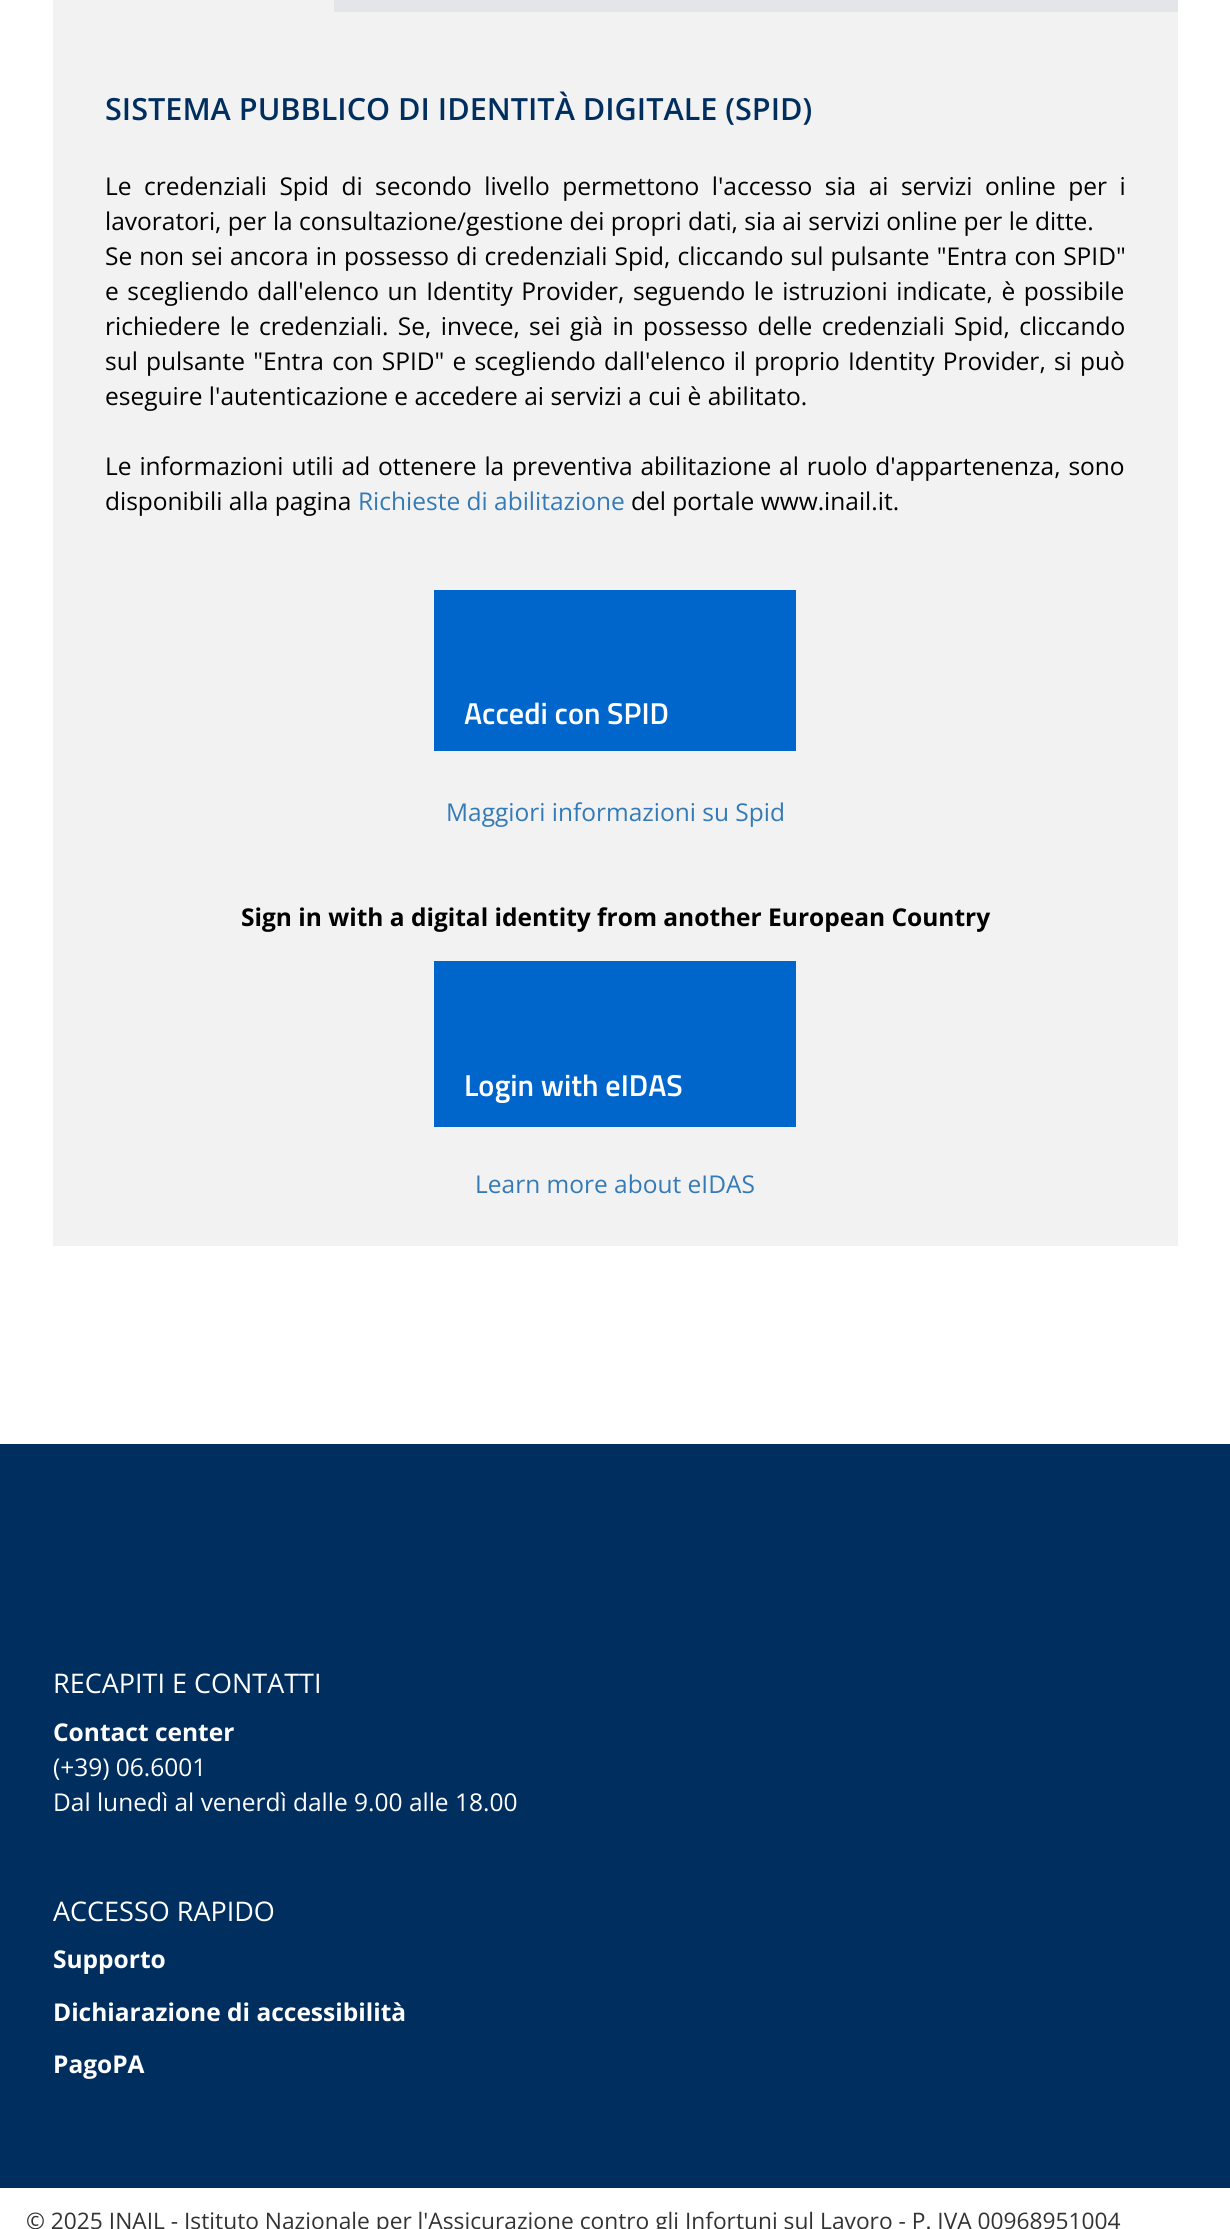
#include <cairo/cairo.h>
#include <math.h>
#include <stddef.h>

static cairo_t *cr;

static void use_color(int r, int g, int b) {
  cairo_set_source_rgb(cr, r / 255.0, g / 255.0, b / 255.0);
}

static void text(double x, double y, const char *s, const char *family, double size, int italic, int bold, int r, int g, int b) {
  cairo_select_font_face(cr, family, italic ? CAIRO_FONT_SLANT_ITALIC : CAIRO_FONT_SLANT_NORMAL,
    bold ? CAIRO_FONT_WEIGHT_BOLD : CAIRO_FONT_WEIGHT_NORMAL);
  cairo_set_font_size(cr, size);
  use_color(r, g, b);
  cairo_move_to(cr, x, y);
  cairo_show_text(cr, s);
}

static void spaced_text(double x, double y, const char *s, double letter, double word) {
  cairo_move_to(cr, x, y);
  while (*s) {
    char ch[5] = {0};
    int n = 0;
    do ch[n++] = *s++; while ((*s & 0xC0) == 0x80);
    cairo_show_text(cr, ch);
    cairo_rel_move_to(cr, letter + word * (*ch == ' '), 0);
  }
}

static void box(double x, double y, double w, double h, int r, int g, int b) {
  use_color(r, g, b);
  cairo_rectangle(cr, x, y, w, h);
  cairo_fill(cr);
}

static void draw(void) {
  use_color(255, 255, 255);
  cairo_paint(cr);
  box(53, 0, 281, 12, 242, 242, 242);
  box(334, 0, 844, 12, 228, 229, 233);
  box(53, 12, 1125, 1234, 242, 242, 242);
  box(434, 590, 362, 161, 0, 102, 204);
  box(434, 961, 362, 166, 0, 102, 204);
  box(0, 1444, 1230, 744, 0, 46, 95);
  text(105, 120, "SISTEMA PUBBLICO DI IDENTITÀ DIGITALE (SPID)", "Open Sans SemiBold", 30.6, 0, 0, 0, 46, 95);
  cairo_select_font_face(cr, "Open Sans", CAIRO_FONT_SLANT_NORMAL, CAIRO_FONT_WEIGHT_NORMAL);
  cairo_set_font_size(cr, 24.5);
  use_color(0, 0, 0);
  spaced_text(105, 195, "Le credenziali Spid di secondo livello permettono l'accesso sia ai servizi online per i", 0, 6.1);
  text(105, 230, "lavoratori, per la consultazione/gestione dei propri dati, sia ai servizi online per le ditte.", "Open Sans", 24.5, 0, 0, 0, 0, 0);
  spaced_text(105, 265, "Se non sei ancora in possesso di credenziali Spid, cliccando sul pulsante \"Entra con SPID\"", 0, 0.75);
  spaced_text(105, 300, "e scegliendo dall'elenco un Identity Provider, seguendo le istruzioni indicate, è possibile", 0, 2.25);
  spaced_text(105, 335, "richiedere le credenziali. Se, invece, sei già in possesso delle credenziali Spid, cliccando", 0, 3);
  spaced_text(105, 370, "sul pulsante \"Entra con SPID\" e scegliendo dall'elenco il proprio Identity Provider, si può", 0, 1.8);
  text(105, 405, "eseguire l'autenticazione e accedere ai servizi a cui è abilitato.", "Open Sans", 24.5, 0, 0, 0, 0, 0);
  spaced_text(105, 475, "Le informazioni utili ad ottenere la preventiva abilitazione al ruolo d'appartenenza, sono", 0, 1.5);
  text(105, 510, "disponibili alla pagina", "Open Sans", 24.5, 0, 0, 0, 0, 0);
  text(358, 510, "Richieste di abilitazione", "Open Sans", 24.5, 0, 0, 51, 122, 183);
  text(631, 510, "del portale www.inail.it.", "Open Sans", 24.5, 0, 0, 0, 0, 0);
  text(464, 724, "Accedi con SPID", "Titillium Web SemiBold", 30.25, 0, 0, 255, 255, 255);
  text(446, 821, "Maggiori informazioni su Spid", "Open Sans", 24.5, 0, 0, 51, 122, 183);
  text(241, 926, "Sign in with a digital identity from another European Country", "Open Sans", 24.5, 0, 1, 0, 0, 0);
  text(464, 1096, "Login with eIDAS", "Titillium Web SemiBold", 30.25, 0, 0, 255, 255, 255);
  text(475, 1193, "Learn more about eIDAS", "Open Sans", 24.5, 0, 0, 51, 122, 183);
  text(53, 1693, "RECAPITI E CONTATTI", "Open Sans", 27, 0, 0, 255, 255, 255);
  text(53, 1741, "Contact center", "Open Sans", 24.5, 0, 1, 255, 255, 255);
  text(53, 1776, "(+39) 06.6001", "Open Sans", 24.5, 0, 0, 255, 255, 255);
  text(53, 1811, "Dal lunedì al venerdì dalle 9.00 alle 18.00", "Open Sans", 24.5, 0, 0, 255, 255, 255);
  text(53, 1921, "ACCESSO RAPIDO", "Open Sans", 27, 0, 0, 255, 255, 255);
  text(53, 1968, "Supporto", "Open Sans", 24.5, 0, 1, 255, 255, 255);
  text(53, 2021, "Dichiarazione di accessibilità", "Open Sans", 24.5, 0, 1, 255, 255, 255);
  text(53, 2073, "PagoPA", "Open Sans", 24.5, 0, 1, 255, 255, 255);
  text(26, 2229, "© 2025 INAIL - Istituto Nazionale per l'Assicurazione contro gli Infortuni sul Lavoro - P. IVA 00968951004", "Open Sans", 22.75, 0, 0, 51, 51, 51);
}

int main(void) {
  cairo_surface_t *surface = cairo_image_surface_create(CAIRO_FORMAT_RGB24, 1230, 2229);
  cr = cairo_create(surface);
  cairo_font_options_t *options = cairo_font_options_create();
  cairo_font_options_set_hint_metrics(options, CAIRO_HINT_METRICS_OFF);
  cairo_font_options_set_hint_style(options, CAIRO_HINT_STYLE_NONE);
  cairo_set_font_options(cr, options);
  cairo_set_miter_limit(cr, 4);
  draw();
  cairo_surface_write_to_png(surface, "out.png");
  cairo_font_options_destroy(options);
  cairo_destroy(cr);
  cairo_surface_destroy(surface);
  return 0;
}
